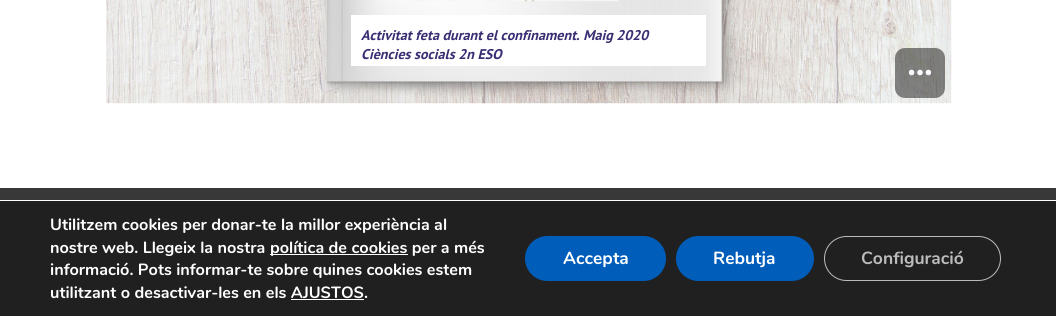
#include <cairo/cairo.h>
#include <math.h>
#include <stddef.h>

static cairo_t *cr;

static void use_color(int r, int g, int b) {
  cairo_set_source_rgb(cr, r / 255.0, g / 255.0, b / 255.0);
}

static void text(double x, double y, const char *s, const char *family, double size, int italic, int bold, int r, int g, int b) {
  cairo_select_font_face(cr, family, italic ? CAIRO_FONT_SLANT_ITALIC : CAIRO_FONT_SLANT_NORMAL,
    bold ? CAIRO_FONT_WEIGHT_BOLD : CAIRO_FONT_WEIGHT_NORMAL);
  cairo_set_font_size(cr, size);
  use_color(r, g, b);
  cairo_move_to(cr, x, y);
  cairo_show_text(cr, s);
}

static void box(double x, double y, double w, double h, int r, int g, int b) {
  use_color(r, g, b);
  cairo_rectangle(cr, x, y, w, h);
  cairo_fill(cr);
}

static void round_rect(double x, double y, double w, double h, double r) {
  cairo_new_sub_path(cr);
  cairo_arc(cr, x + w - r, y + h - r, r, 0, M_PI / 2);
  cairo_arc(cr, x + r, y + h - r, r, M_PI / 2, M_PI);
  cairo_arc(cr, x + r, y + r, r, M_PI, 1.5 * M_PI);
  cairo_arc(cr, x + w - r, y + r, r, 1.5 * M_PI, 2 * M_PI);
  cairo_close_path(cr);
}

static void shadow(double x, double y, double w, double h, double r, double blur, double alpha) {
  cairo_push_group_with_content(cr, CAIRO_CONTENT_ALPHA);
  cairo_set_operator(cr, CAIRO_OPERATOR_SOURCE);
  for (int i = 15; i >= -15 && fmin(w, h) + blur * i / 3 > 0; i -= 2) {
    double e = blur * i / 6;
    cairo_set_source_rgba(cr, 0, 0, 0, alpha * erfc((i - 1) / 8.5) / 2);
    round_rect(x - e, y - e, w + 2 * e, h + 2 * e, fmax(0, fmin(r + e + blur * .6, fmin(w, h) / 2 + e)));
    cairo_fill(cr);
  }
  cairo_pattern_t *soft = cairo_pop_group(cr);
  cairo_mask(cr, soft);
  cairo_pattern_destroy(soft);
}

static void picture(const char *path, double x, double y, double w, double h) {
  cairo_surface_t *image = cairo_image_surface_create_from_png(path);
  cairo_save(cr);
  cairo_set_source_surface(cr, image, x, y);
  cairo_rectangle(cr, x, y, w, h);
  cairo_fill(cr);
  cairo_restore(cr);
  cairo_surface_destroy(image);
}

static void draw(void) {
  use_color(255, 255, 255);
  cairo_paint(cr);
  picture("img_01.png", 106, 0, 846, 104);
  use_color(0, 0, 0);
  shadow(331, -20, 394, 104, 0, 6.5, 0.25);
  picture("img_02.png", 327, 0, 421, 103);
  picture("img_03.png", 341, 0, 2, 81);
  picture("img_04.png", 414, 0, 205, 2);
  box(351, 15, 355, 51, 255, 255, 255);
  cairo_set_source_rgba(cr, 0.071, 0.071, 0.071, 0.5);
  round_rect(895, 48, 50, 50, 10);
  cairo_fill(cr);
  picture("img_05.png", 909, 69, 22, 7);
  box(0, 188, 1056, 12, 56, 56, 56);
  box(0, 201, 1056, 115, 32, 32, 32);
  box(270, 254, 138, 1, 255, 255, 255);
  box(291, 299, 73, 1, 255, 255, 255);
  use_color(0, 93, 185);
  round_rect(525, 236, 141, 45, 22.5);
  cairo_fill(cr);
  round_rect(676, 236, 138, 45, 22.5);
  cairo_fill(cr);
  round_rect(824.5, 236.5, 176, 44, 22);
  use_color(188, 188, 188);
  cairo_set_line_width(cr, 1);
  cairo_stroke(cr);
  text(361, 40, "Activitat feta durant el confinament. Maig 2020", "PT Sans", 14.1, 1, 1, 56, 46, 115);
  text(361, 59, "Ciències socials 2n ESO", "PT Sans", 14.1, 1, 1, 56, 46, 115);
  text(50, 230, "Utilitzem cookies per donar-te la millor experiència al", "Nunito", 16.25, 0, 1, 255, 255, 255);
  text(50, 253, "nostre web. Llegeix la nostra", "Nunito", 16.25, 0, 1, 255, 255, 255);
  text(270, 253, "política de cookies per a més", "Nunito", 16.25, 0, 1, 255, 255, 255);
  text(50, 275, "informació. Pots informar-te sobre quines cookies estem", "Nunito", 16.25, 0, 1, 255, 255, 255);
  text(50, 298, "utilitzant o desactivar-les en els AJUSTOS.", "Nunito", 16.25, 0, 1, 255, 255, 255);
  text(563, 264, "Accepta", "Nunito", 17.5, 0, 1, 255, 255, 255);
  text(713, 264, "Rebutja", "Nunito", 17.5, 0, 1, 255, 255, 255);
  text(861, 264, "Configuració", "Nunito", 17.5, 0, 1, 188, 188, 188);
}

int main(void) {
  cairo_surface_t *surface = cairo_image_surface_create(CAIRO_FORMAT_RGB24, 1056, 316);
  cr = cairo_create(surface);
  cairo_font_options_t *options = cairo_font_options_create();
  cairo_font_options_set_hint_metrics(options, CAIRO_HINT_METRICS_OFF);
  cairo_font_options_set_hint_style(options, CAIRO_HINT_STYLE_NONE);
  cairo_set_font_options(cr, options);
  cairo_set_miter_limit(cr, 4);
  draw();
  cairo_surface_write_to_png(surface, "out.png");
  cairo_font_options_destroy(options);
  cairo_destroy(cr);
  cairo_surface_destroy(surface);
  return 0;
}
